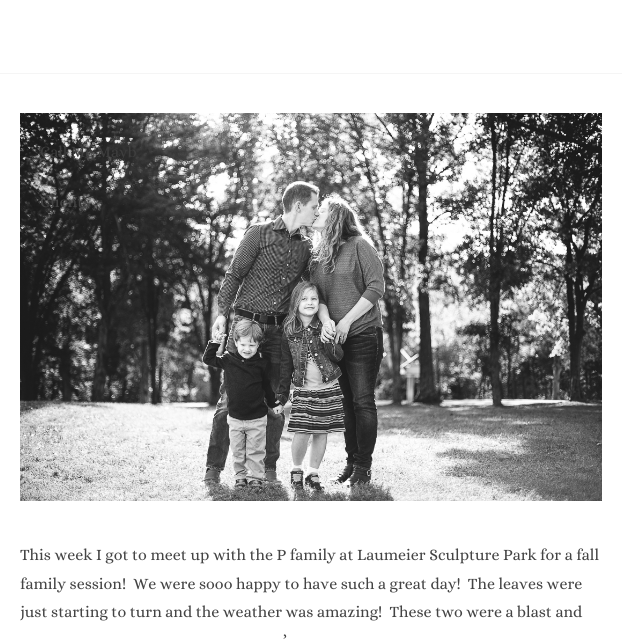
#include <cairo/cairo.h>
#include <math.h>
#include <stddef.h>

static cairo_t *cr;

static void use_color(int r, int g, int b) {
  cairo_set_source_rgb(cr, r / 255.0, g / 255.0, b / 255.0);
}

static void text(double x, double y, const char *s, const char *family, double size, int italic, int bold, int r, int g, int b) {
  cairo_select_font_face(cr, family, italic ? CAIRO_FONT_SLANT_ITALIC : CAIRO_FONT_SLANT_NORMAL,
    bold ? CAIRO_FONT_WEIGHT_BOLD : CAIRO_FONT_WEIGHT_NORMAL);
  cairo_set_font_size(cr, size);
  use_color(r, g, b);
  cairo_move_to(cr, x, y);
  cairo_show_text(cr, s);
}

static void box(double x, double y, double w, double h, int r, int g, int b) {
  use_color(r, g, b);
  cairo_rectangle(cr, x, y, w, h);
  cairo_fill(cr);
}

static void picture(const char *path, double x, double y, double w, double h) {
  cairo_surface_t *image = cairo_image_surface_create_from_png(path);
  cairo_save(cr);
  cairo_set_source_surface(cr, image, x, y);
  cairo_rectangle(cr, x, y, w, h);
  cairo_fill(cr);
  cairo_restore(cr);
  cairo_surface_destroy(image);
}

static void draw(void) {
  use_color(255, 255, 255);
  cairo_paint(cr);
  box(0, 73, 622, 1, 245, 245, 245);
  picture("img_01.png", 20, 113, 582, 388);
  text(40, 157, "Call Me Mayb", "Alice", 16, 0, 0, 62, 62, 62);
  text(40, 207, "Clients", "Alice", 16, 0, 0, 68, 68, 68);
  text(20, 560, "This week I got to meet up with the P family at Laumeier Sculpture Park for a fall", "Alice", 16, 0, 0, 68, 68, 68);
  text(20, 589, "family session!  We were sooo happy to have such a great day!  The leaves were", "Alice", 16, 0, 0, 68, 68, 68);
  text(20, 617, "just starting to turn and the weather was amazing!  These two were a blast and", "Alice", 16, 0, 0, 68, 68, 68);
  text(283, 646, "’", "Alice", 16, 0, 0, 68, 68, 68);
}

int main(void) {
  cairo_surface_t *surface = cairo_image_surface_create(CAIRO_FORMAT_RGB24, 622, 643);
  cr = cairo_create(surface);
  cairo_font_options_t *options = cairo_font_options_create();
  cairo_font_options_set_hint_metrics(options, CAIRO_HINT_METRICS_OFF);
  cairo_font_options_set_hint_style(options, CAIRO_HINT_STYLE_NONE);
  cairo_set_font_options(cr, options);
  cairo_set_miter_limit(cr, 4);
  draw();
  cairo_surface_write_to_png(surface, "out.png");
  cairo_font_options_destroy(options);
  cairo_destroy(cr);
  cairo_surface_destroy(surface);
  return 0;
}
